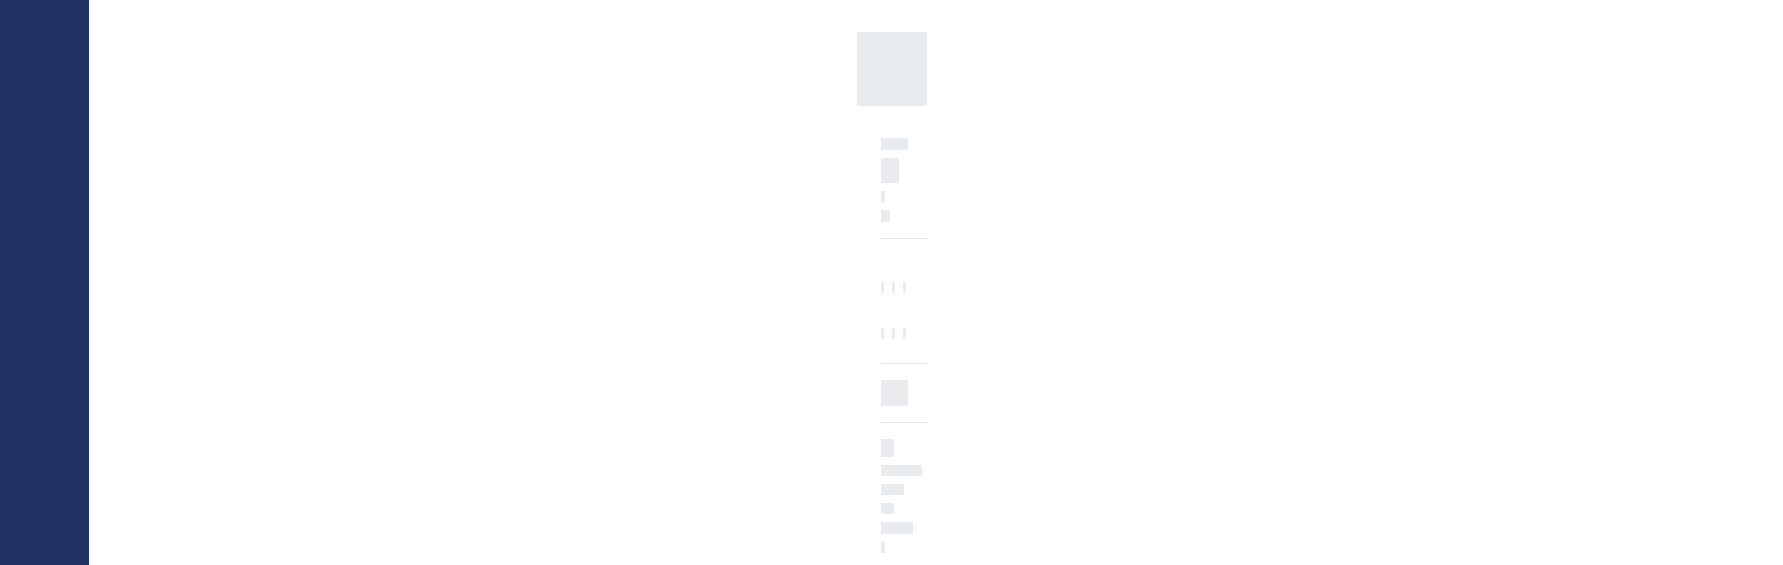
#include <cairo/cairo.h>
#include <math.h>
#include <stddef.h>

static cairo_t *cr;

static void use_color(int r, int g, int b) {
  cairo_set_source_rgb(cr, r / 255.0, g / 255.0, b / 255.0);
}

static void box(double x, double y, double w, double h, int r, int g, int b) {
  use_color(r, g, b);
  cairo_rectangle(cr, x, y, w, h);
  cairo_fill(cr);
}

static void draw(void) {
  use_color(255, 255, 255);
  cairo_paint(cr);
  box(0, 0, 89, 565, 32, 48, 97);
  box(857, 32, 70, 74, 233, 236, 239);
  box(881, 138, 27, 12, 233, 236, 239);
  box(881, 158, 18, 25, 233, 236, 239);
  box(881, 191, 4, 11, 233, 236, 239);
  box(881, 210, 9, 12, 233, 236, 239);
  box(881, 238, 46, 1, 230, 230, 230);
  box(881, 282, 3, 11, 233, 236, 239);
  box(892, 282, 3, 11, 233, 236, 239);
  box(903, 282, 3, 11, 233, 236, 239);
  box(881, 328, 3, 11, 233, 236, 239);
  box(892, 328, 3, 11, 233, 236, 239);
  box(903, 328, 3, 11, 233, 236, 239);
  box(881, 363, 46, 1, 230, 230, 230);
  box(881, 380, 27, 26, 233, 236, 239);
  box(881, 422, 46, 1, 230, 230, 230);
  box(881, 439, 13, 18, 233, 236, 239);
  box(881, 465, 41, 11, 233, 236, 239);
  box(881, 484, 23, 11, 233, 236, 239);
  box(881, 503, 13, 11, 233, 236, 239);
  box(881, 522, 32, 12, 233, 236, 239);
  box(881, 542, 4, 11, 233, 236, 239);
}

int main(void) {
  cairo_surface_t *surface = cairo_image_surface_create(CAIRO_FORMAT_RGB24, 1783, 565);
  cr = cairo_create(surface);
  cairo_font_options_t *options = cairo_font_options_create();
  cairo_font_options_set_hint_metrics(options, CAIRO_HINT_METRICS_OFF);
  cairo_font_options_set_hint_style(options, CAIRO_HINT_STYLE_NONE);
  cairo_set_font_options(cr, options);
  cairo_set_miter_limit(cr, 4);
  draw();
  cairo_surface_write_to_png(surface, "out.png");
  cairo_font_options_destroy(options);
  cairo_destroy(cr);
  cairo_surface_destroy(surface);
  return 0;
}
